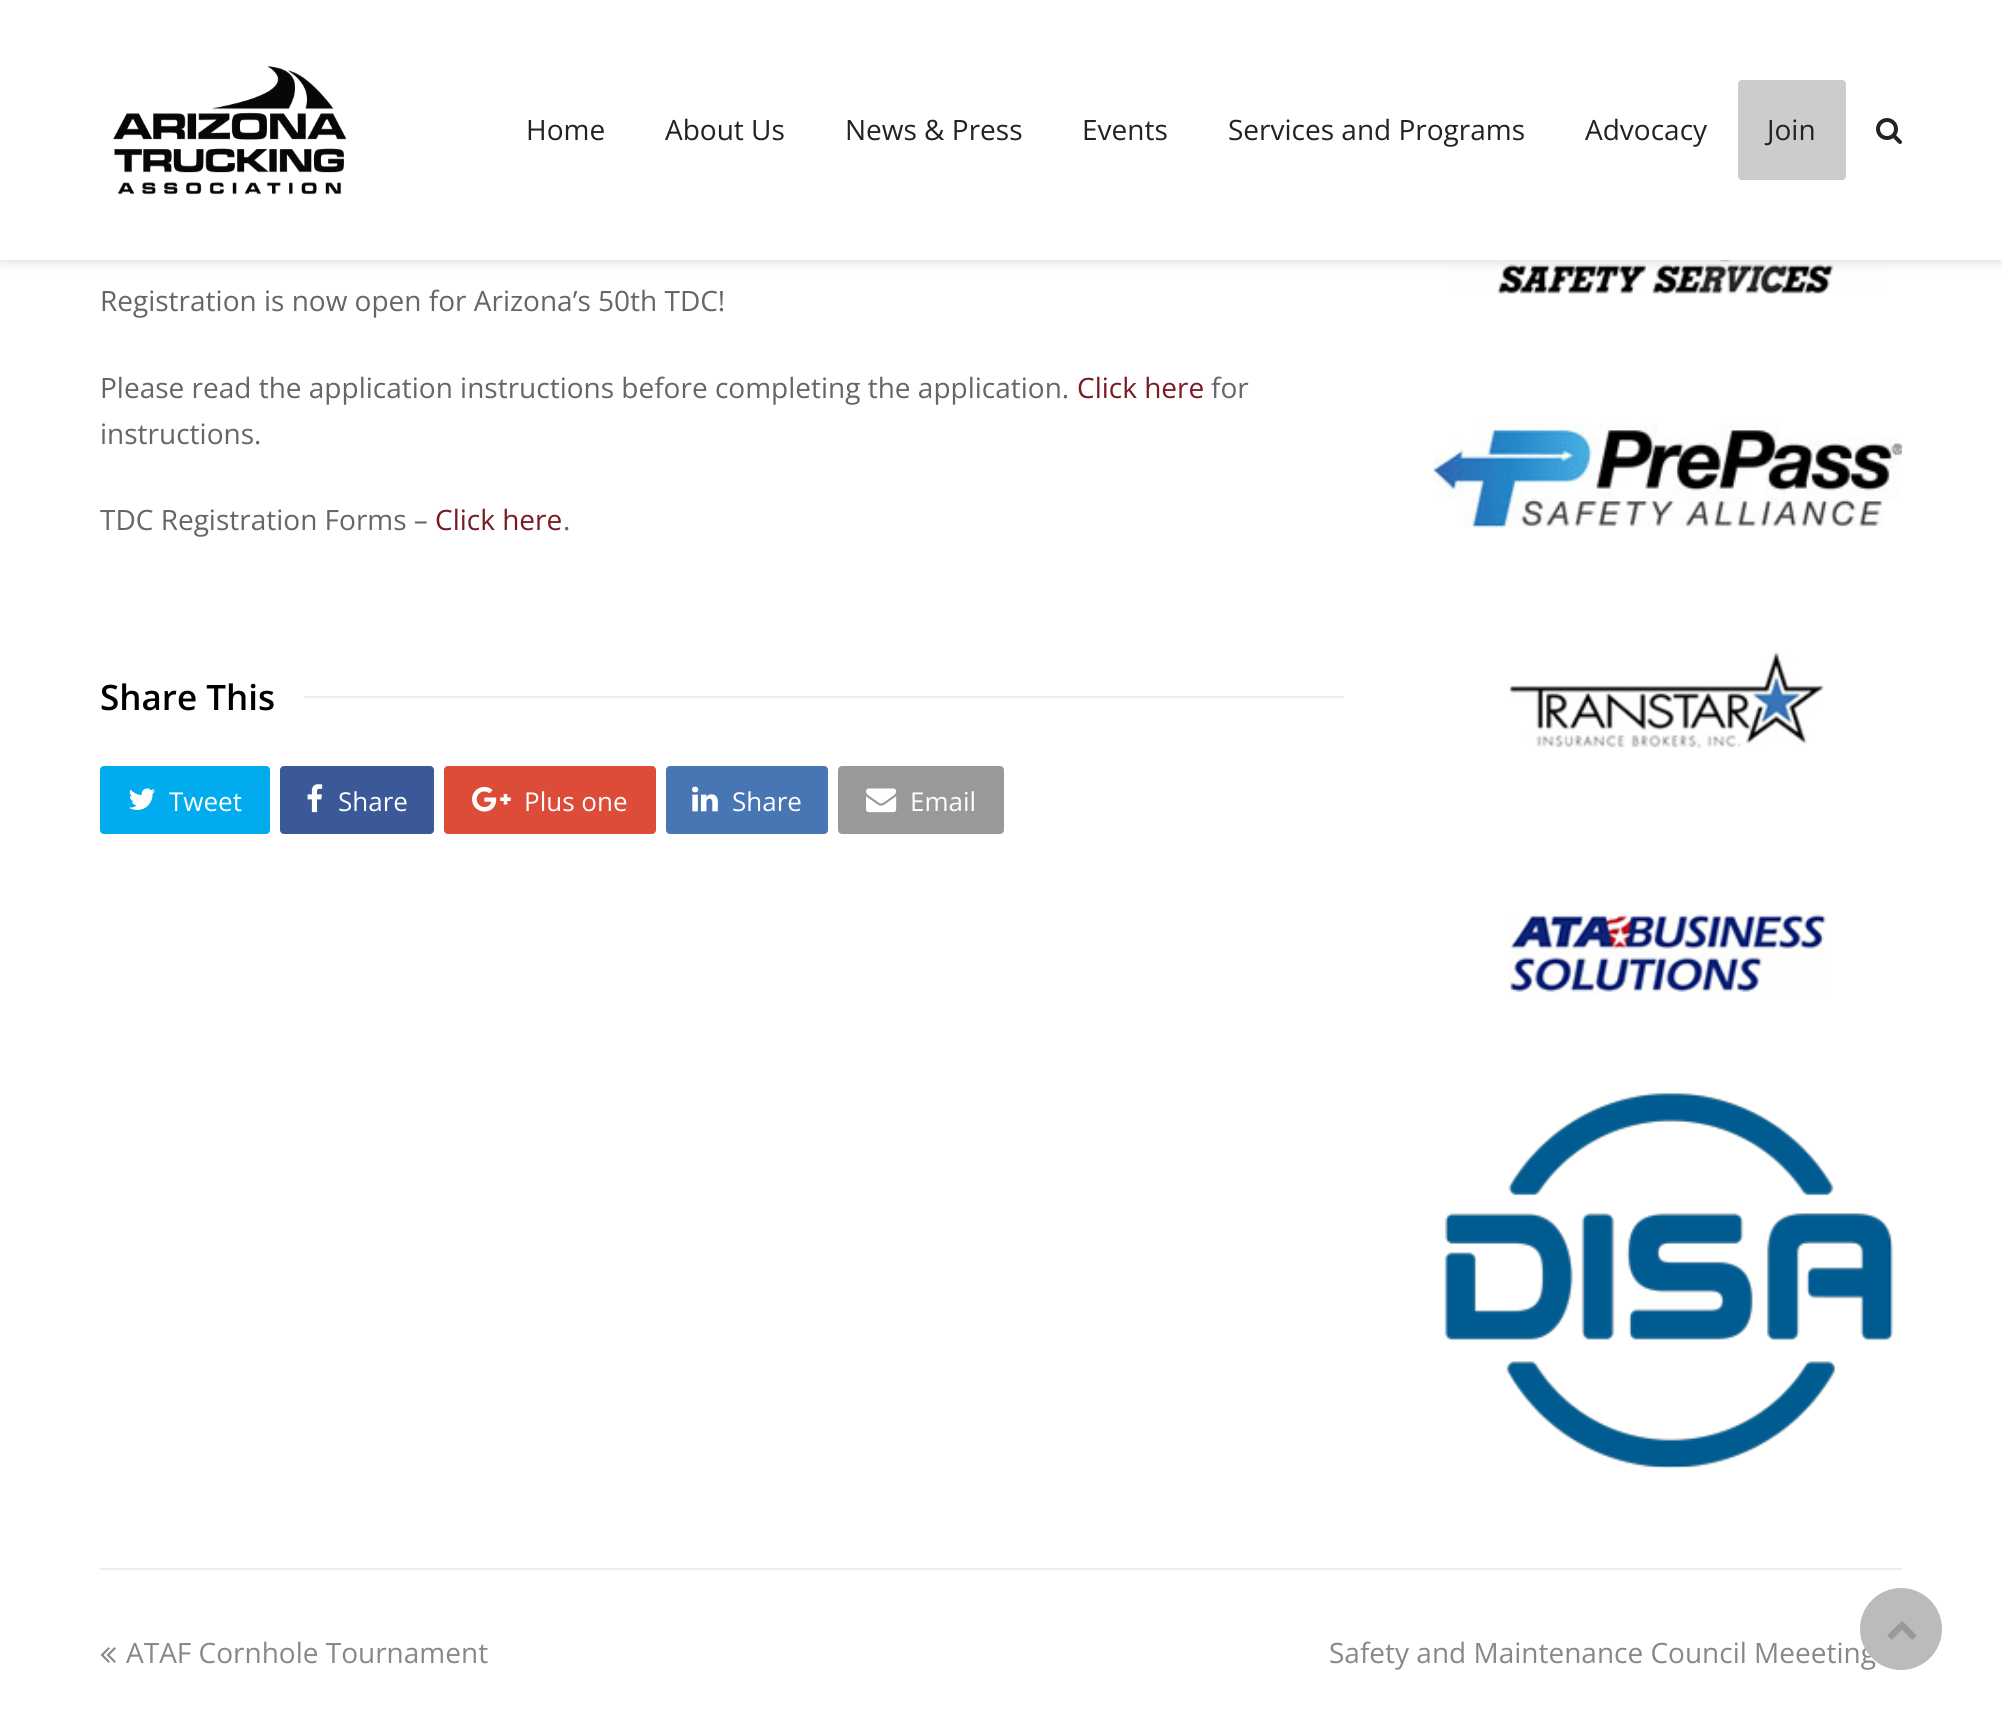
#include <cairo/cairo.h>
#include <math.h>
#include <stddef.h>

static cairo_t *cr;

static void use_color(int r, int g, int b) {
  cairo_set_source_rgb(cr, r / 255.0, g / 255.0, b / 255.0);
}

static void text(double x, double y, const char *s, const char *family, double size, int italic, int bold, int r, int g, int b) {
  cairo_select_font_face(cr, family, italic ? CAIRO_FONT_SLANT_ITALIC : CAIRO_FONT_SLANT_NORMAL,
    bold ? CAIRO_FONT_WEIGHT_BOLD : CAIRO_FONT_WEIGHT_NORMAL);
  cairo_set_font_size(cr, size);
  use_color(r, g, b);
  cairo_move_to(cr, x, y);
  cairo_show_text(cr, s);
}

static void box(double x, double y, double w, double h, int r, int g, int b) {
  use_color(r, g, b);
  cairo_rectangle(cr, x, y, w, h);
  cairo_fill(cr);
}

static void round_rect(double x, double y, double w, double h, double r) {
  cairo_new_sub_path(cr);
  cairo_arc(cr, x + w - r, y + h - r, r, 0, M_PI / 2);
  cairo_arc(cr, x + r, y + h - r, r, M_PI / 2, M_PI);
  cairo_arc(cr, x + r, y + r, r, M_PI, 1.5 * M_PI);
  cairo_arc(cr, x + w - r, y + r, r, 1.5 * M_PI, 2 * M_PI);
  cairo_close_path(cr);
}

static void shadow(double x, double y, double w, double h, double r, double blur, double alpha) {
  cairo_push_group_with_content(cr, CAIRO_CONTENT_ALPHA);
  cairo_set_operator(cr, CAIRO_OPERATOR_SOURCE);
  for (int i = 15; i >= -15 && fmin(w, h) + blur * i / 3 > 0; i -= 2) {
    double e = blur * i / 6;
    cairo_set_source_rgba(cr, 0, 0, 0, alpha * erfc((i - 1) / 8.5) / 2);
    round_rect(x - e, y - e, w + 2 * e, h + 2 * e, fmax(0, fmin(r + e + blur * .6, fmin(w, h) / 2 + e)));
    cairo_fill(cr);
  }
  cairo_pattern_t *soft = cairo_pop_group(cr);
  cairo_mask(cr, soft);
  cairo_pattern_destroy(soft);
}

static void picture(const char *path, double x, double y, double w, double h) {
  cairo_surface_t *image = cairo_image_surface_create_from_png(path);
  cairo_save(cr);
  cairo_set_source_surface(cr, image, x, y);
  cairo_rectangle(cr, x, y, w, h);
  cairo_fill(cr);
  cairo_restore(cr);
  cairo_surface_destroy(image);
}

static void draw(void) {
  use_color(255, 255, 255);
  cairo_paint(cr);
  picture("img_08.png", 1448, 260, 440, 34);
  use_color(0, 0, 0);
  shadow(0, 4, 2002, 260, 0, 5, 0.1);
  box(0, 0, 2002, 260, 255, 255, 255);
  picture("img_01.png", 113, 66, 234, 129);
  use_color(204, 204, 204);
  round_rect(1738, 80, 108, 100, 4);
  cairo_fill(cr);
  picture("img_02.png", 1876, 118, 26, 26);
  box(304, 696, 1040, 2, 238, 238, 238);
  use_color(0, 172, 237);
  round_rect(100, 766, 170, 68, 4);
  cairo_fill(cr);
  picture("img_03.png", 129, 788, 27, 22);
  use_color(59, 89, 152);
  round_rect(280, 766, 154, 68, 4);
  cairo_fill(cr);
  picture("img_04.png", 307, 784, 16, 29);
  use_color(221, 75, 57);
  round_rect(444, 766, 212, 68, 4);
  cairo_fill(cr);
  picture("img_05.png", 472, 786, 39, 26);
  use_color(72, 117, 180);
  round_rect(666, 766, 162, 68, 4);
  cairo_fill(cr);
  picture("img_06.png", 692, 786, 26, 26);
  use_color(153, 153, 153);
  round_rect(838, 766, 166, 68, 4);
  cairo_fill(cr);
  picture("img_07.png", 866, 788, 31, 25);
  picture("img_09.png", 1434, 423, 468, 105);
  picture("img_10.png", 1508, 652, 316, 97);
  picture("img_11.png", 1509, 913, 320, 84);
  picture("img_12.png", 1444, 1093, 450, 376);
  box(100, 1568, 1802, 2, 238, 238, 238);
  picture("img_13.png", 100, 1647, 16, 16);
  text(526, 140, "Home", "Open Sans", 28, 0, 0, 34, 34, 34);
  text(665, 140, "About Us", "Open Sans", 28, 0, 0, 34, 34, 34);
  text(845, 140, "News & Press", "Open Sans", 28, 0, 0, 34, 34, 34);
  text(1082, 140, "Events", "Open Sans", 28, 0, 0, 34, 34, 34);
  text(1228, 140, "Services and Programs", "Open Sans", 28, 0, 0, 34, 34, 34);
  text(1585, 140, "Advocacy", "Open Sans", 28, 0, 0, 34, 34, 34);
  text(1767, 140, "Join", "Open Sans", 28, 0, 0, 34, 34, 34);
  text(100, 311, "Registration is now open for Arizona’s 50th TDC!", "Open Sans", 28, 0, 0, 102, 102, 102);
  text(100, 398, "Please read the application instructions before completing the application.", "Open Sans", 28, 0, 0, 102, 102, 102);
  text(1077, 398, "Click here", "Open Sans", 28, 0, 0, 120, 27, 34);
  text(1211, 398, "for", "Open Sans", 28, 0, 0, 102, 102, 102);
  text(100, 444, "instructions.", "Open Sans", 28, 0, 0, 102, 102, 102);
  text(100, 530, "TDC Registration Forms –", "Open Sans", 28, 0, 0, 102, 102, 102);
  text(435, 530, "Click here", "Open Sans", 28, 0, 0, 120, 27, 34);
  text(563, 530, ".", "Open Sans", 28, 0, 0, 102, 102, 102);
  text(100, 710, "Share This", "Open Sans SemiBold", 35, 0, 0, 0, 0, 0);
  text(169, 811, "Tweet", "Open Sans", 26, 0, 0, 255, 255, 255);
  text(338, 811, "Share", "Open Sans", 26, 0, 0, 255, 255, 255);
  text(524, 811, "Plus one", "Open Sans", 26, 0, 0, 255, 255, 255);
  text(732, 811, "Share", "Open Sans", 26, 0, 0, 255, 255, 255);
  text(910, 811, "Email", "Open Sans", 26, 0, 0, 255, 255, 255);
  text(126, 1663, "ATAF Cornhole Tournament", "Open Sans", 28, 0, 0, 136, 136, 136);
  text(1329, 1663, "Safety and Maintenance Council Meeeting", "Open Sans", 28, 0, 0, 136, 136, 136);
  use_color(187, 187, 187);
  cairo_new_path(cr);
  cairo_arc(cr, 1901, 1629, 38, 0, 2 * M_PI);
  cairo_fill_preserve(cr);
  cairo_set_line_width(cr, 6);
  cairo_stroke(cr);
  picture("img_14.png", 1887, 1621, 30, 19);
}

int main(void) {
  cairo_surface_t *surface = cairo_image_surface_create(CAIRO_FORMAT_RGB24, 2002, 1729);
  cr = cairo_create(surface);
  cairo_font_options_t *options = cairo_font_options_create();
  cairo_font_options_set_hint_metrics(options, CAIRO_HINT_METRICS_OFF);
  cairo_font_options_set_hint_style(options, CAIRO_HINT_STYLE_NONE);
  cairo_set_font_options(cr, options);
  cairo_set_miter_limit(cr, 4);
  draw();
  cairo_surface_write_to_png(surface, "out.png");
  cairo_font_options_destroy(options);
  cairo_destroy(cr);
  cairo_surface_destroy(surface);
  return 0;
}
